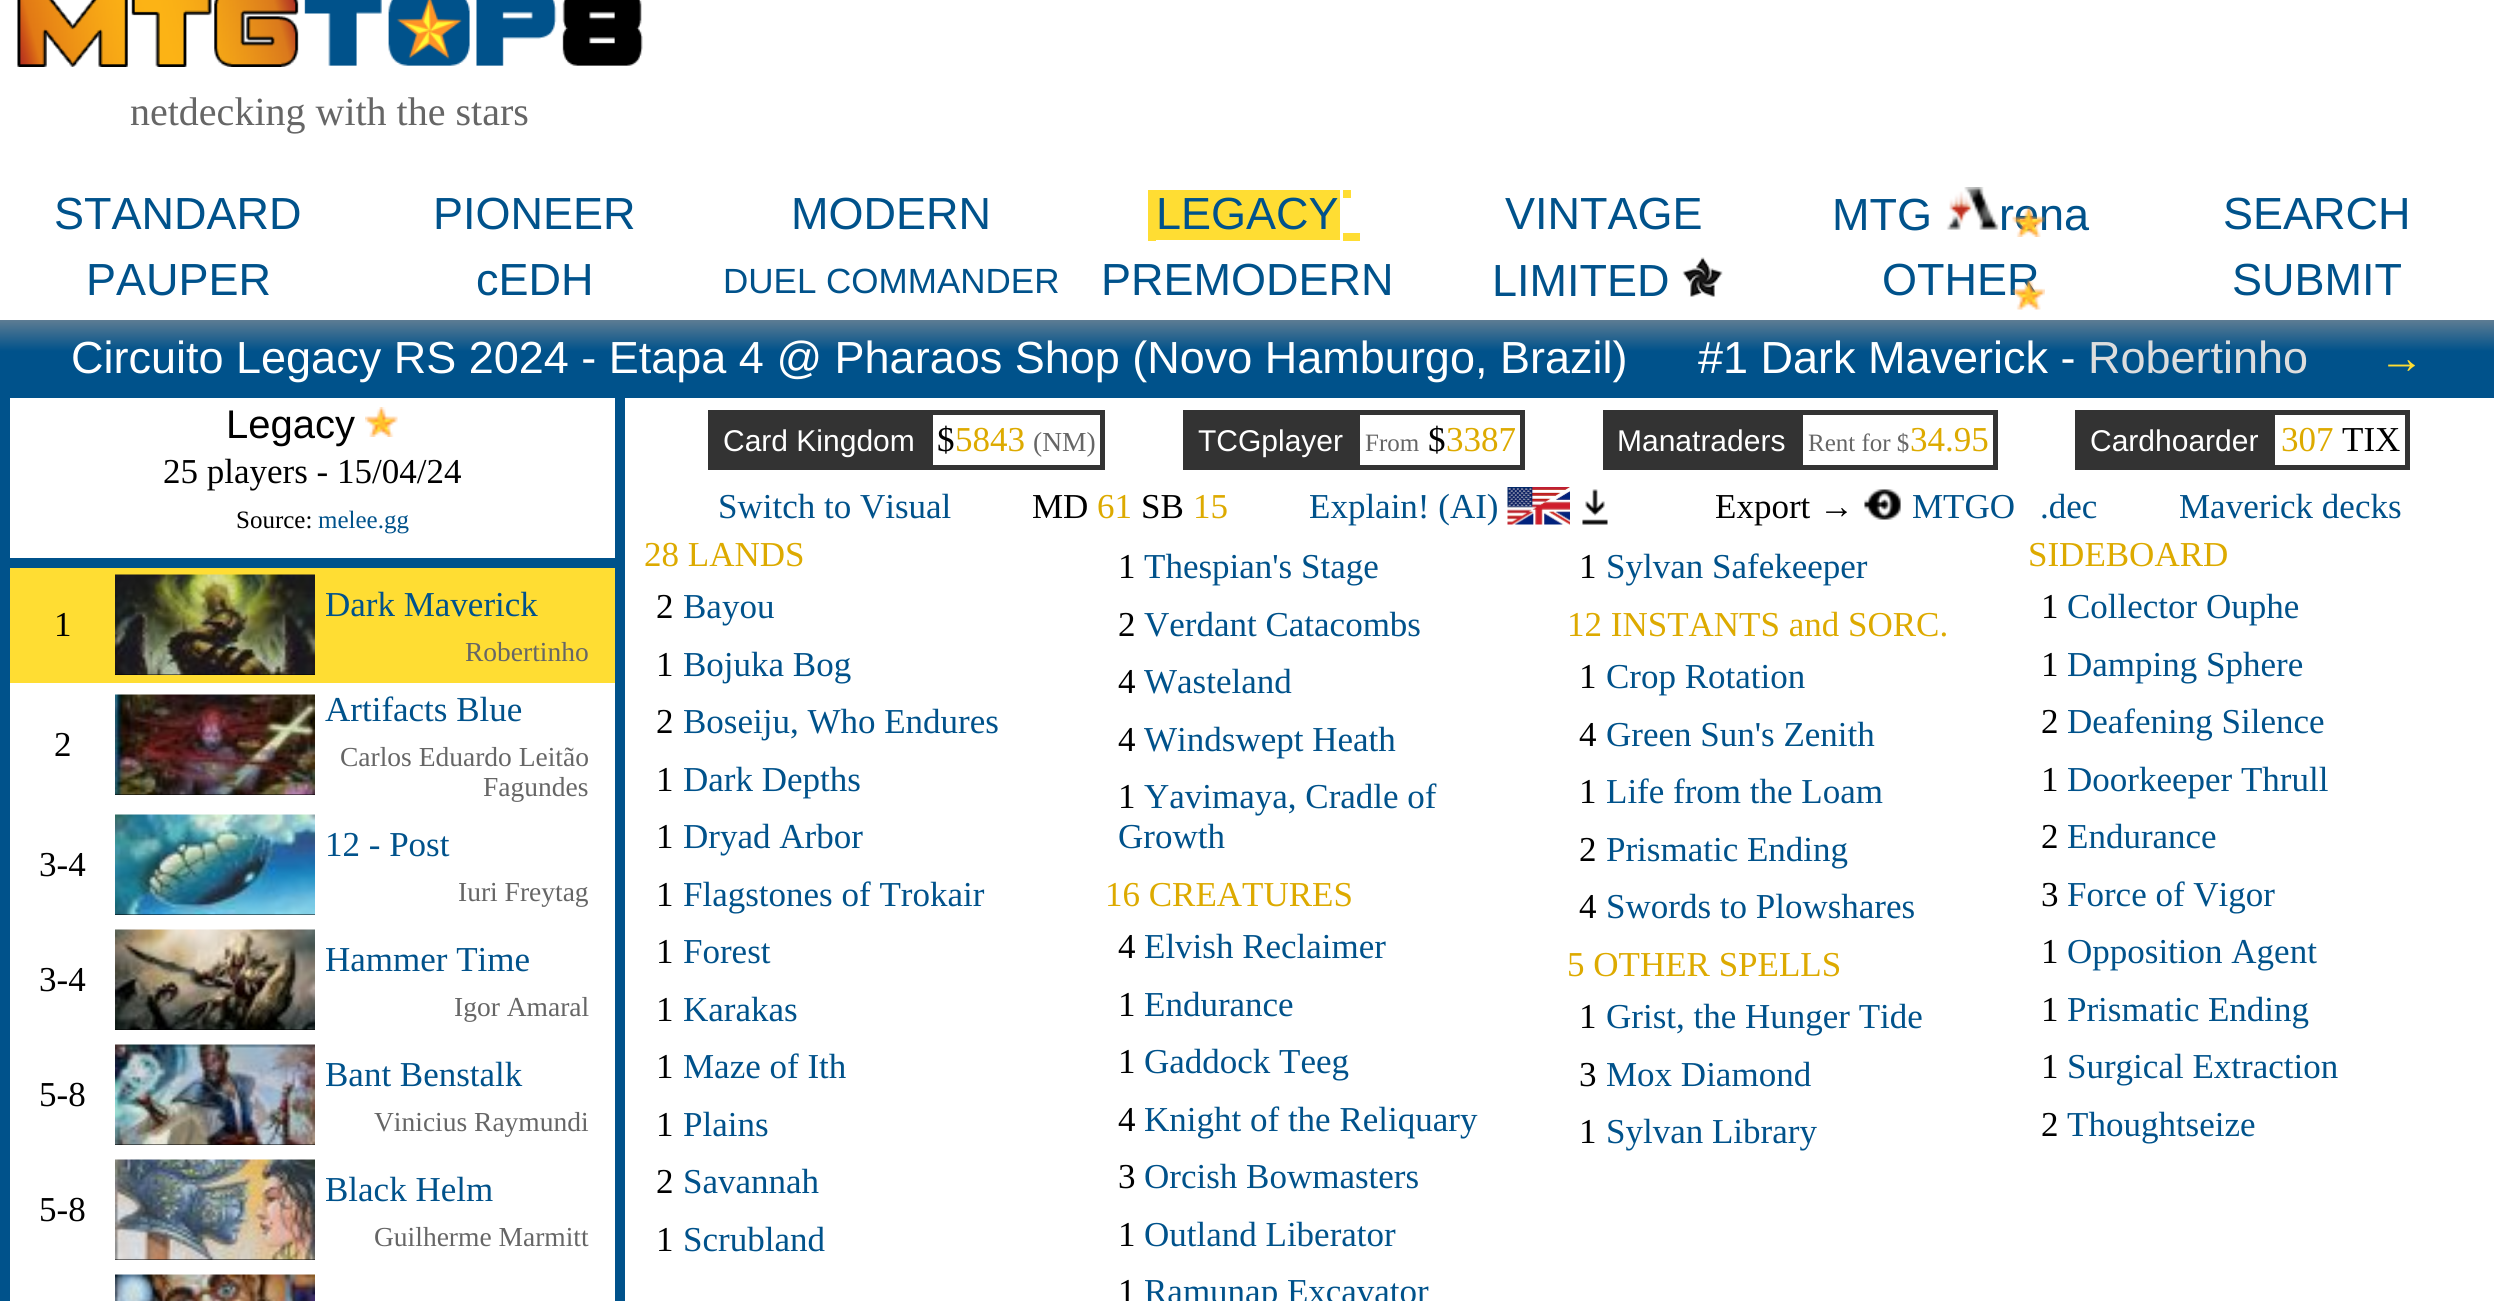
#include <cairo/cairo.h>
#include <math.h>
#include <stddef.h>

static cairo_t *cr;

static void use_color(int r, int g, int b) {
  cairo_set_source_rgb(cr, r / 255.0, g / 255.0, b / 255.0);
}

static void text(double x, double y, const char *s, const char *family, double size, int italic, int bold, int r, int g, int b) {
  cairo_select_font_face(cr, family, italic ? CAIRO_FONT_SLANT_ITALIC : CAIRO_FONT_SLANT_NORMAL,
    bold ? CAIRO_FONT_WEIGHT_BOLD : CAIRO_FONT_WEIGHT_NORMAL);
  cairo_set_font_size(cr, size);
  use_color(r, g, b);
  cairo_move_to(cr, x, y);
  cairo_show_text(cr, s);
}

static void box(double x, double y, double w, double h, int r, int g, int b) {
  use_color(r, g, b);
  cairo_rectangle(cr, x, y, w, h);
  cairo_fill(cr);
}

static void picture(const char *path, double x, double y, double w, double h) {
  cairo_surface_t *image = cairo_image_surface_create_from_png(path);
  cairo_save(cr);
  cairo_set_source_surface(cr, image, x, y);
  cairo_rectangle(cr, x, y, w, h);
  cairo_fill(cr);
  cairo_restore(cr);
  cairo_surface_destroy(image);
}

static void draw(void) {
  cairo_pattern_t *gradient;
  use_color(255, 255, 255);
  cairo_paint(cr);
  picture("img_01.png", 17, 0, 626, 67);
  box(1148, 190, 192, 50, 255, 221, 51);
  box(1343, 190, 8, 8, 255, 221, 51);
  box(1148, 240, 8, 1, 255, 221, 51);
  box(1343, 233, 17, 8, 255, 221, 51);
  picture("img_02.png", 1946, 187, 53, 43);
  picture("img_04.png", 1682, 257, 41, 40);
  gradient = cairo_pattern_create_linear(1248, 320, 1248, 398);
  cairo_pattern_add_color_stop_rgba(gradient, 0, 0.365, 0.486, 0.576, 1);
  cairo_pattern_add_color_stop_rgba(gradient, 0.4, 0, 0.322, 0.545, 1);
  cairo_pattern_add_color_stop_rgba(gradient, 1, 0, 0.322, 0.545, 1);
  cairo_set_source(cr, gradient);
  cairo_pattern_destroy(gradient);
  cairo_rectangle(cr, 0, 320, 2494, 78);
  cairo_fill(cr);
  box(0, 398, 625, 903, 0, 82, 139);
  box(10, 398, 605, 160, 255, 255, 255);
  picture("img_06.png", 365, 407, 33, 30);
  box(10, 568, 605, 115, 255, 221, 51);
  box(115, 674, 200, 1, 0, 0, 0);
  picture("img_07.png", 115, 574, 200, 101);
  box(10, 683, 605, 618, 255, 255, 255);
  box(115, 794, 200, 1, 0, 0, 0);
  picture("img_08.png", 115, 694, 200, 101);
  box(115, 914, 200, 1, 0, 0, 0);
  picture("img_09.png", 115, 814, 200, 101);
  box(115, 1029, 200, 1, 0, 0, 0);
  picture("img_10.png", 115, 929, 200, 101);
  box(115, 1144, 200, 1, 0, 0, 0);
  picture("img_11.png", 115, 1044, 200, 101);
  box(115, 1259, 200, 1, 0, 0, 0);
  picture("img_12.png", 115, 1159, 200, 101);
  picture("img_13.png", 115, 1274, 200, 27);
  box(708, 410, 397, 60, 51, 51, 51);
  box(933, 415, 167, 50, 255, 255, 255);
  box(1183, 410, 342, 60, 51, 51, 51);
  box(1360, 415, 160, 50, 255, 255, 255);
  box(1603, 410, 395, 60, 51, 51, 51);
  box(1803, 415, 190, 50, 255, 255, 255);
  box(2075, 410, 335, 60, 51, 51, 51);
  box(2275, 415, 130, 50, 255, 255, 255);
  picture("img_14.png", 1507, 487, 63, 38);
  picture("img_15.png", 1582, 489, 26, 36);
  picture("img_16.png", 1864, 489, 37, 31);
  text(130, 125, "netdecking with the stars", "Liberation Serif", 40, 0, 0, 102, 102, 102);
  text(54, 229, "STANDARD", "Liberation Sans", 45, 0, 0, 0, 82, 139);
  text(433, 229, "PIONEER", "Liberation Sans", 45, 0, 0, 0, 82, 139);
  text(791, 229, "MODERN", "Liberation Sans", 45, 0, 0, 0, 82, 139);
  text(1156, 229, "LEGACY", "Liberation Sans", 45, 0, 0, 0, 82, 139);
  text(1505, 229, "VINTAGE", "Liberation Sans", 45, 0, 0, 0, 82, 139);
  text(1832, 230, "MTG", "Liberation Sans", 45, 0, 0, 0, 82, 139);
  text(1999, 230, "rena", "Liberation Sans", 45, 0, 0, 0, 82, 139);
  text(2223, 229, "SEARCH", "Liberation Sans", 45, 0, 0, 0, 82, 139);
  picture("img_03.png", 2012, 207, 33, 30);
  text(86, 295, "PAUPER", "Liberation Sans", 45, 0, 0, 0, 82, 139);
  text(476, 295, "cEDH", "Liberation Sans", 45, 0, 0, 0, 82, 139);
  text(723, 293, "DUEL COMMANDER", "Liberation Sans", 35, 0, 0, 0, 82, 139);
  text(1101, 295, "PREMODERN", "Liberation Sans", 45, 0, 0, 0, 82, 139);
  text(1492, 296, "LIMITED", "Liberation Sans", 45, 0, 0, 0, 82, 139);
  text(1882, 295, "OTHER", "Liberation Sans", 45, 0, 0, 0, 82, 139);
  text(2232, 295, "SUBMIT", "Liberation Sans", 45, 0, 0, 0, 82, 139);
  picture("img_05.png", 2012, 279, 33, 31);
  text(71, 373, "Circuito Legacy RS 2024 - Etapa 4 @ Pharaos Shop (Novo Hamburgo, Brazil)", "Liberation Sans", 45, 0, 0, 255, 255, 255);
  text(1698, 373, "#1 Dark Maverick -", "Liberation Sans", 45, 0, 0, 255, 255, 255);
  text(2088, 373, "Robertinho", "Liberation Sans", 45, 0, 0, 221, 221, 221);
  text(2379, 373, "→", "Liberation Sans", 45, 0, 0, 255, 221, 51);
  text(226, 438, "Legacy", "Liberation Sans", 40, 0, 0, 0, 0, 0);
  text(163, 483, "25 players - 15/04/24", "Liberation Serif", 35, 0, 0, 0, 0, 0);
  text(236, 528, "Source:", "Liberation Serif", 25, 0, 0, 0, 0, 0);
  text(318, 528, "melee.gg", "Liberation Serif", 25, 0, 0, 0, 82, 139);
  text(54, 636, "1", "Liberation Serif", 35, 0, 0, 0, 0, 0);
  text(325, 616, "Dark Maverick", "Liberation Serif", 35, 0, 0, 0, 82, 139);
  text(465, 661, "Robertinho", "Liberation Serif", 27.5, 0, 0, 102, 102, 102);
  text(54, 756, "2", "Liberation Serif", 35, 0, 0, 0, 0, 0);
  text(325, 721, "Artifacts Blue", "Liberation Serif", 35, 0, 0, 0, 82, 139);
  text(340, 766, "Carlos Eduardo Leitão", "Liberation Serif", 27.5, 0, 0, 102, 102, 102);
  text(483, 796, "Fagundes", "Liberation Serif", 27.5, 0, 0, 102, 102, 102);
  text(39, 876, "3-4", "Liberation Serif", 35, 0, 0, 0, 0, 0);
  text(325, 856, "12 - Post", "Liberation Serif", 35, 0, 0, 0, 82, 139);
  text(458, 901, "Iuri Freytag", "Liberation Serif", 27.5, 0, 0, 102, 102, 102);
  text(39, 991, "3-4", "Liberation Serif", 35, 0, 0, 0, 0, 0);
  text(325, 971, "Hammer Time", "Liberation Serif", 35, 0, 0, 0, 82, 139);
  text(454, 1016, "Igor Amaral", "Liberation Serif", 27.5, 0, 0, 102, 102, 102);
  text(39, 1106, "5-8", "Liberation Serif", 35, 0, 0, 0, 0, 0);
  text(325, 1086, "Bant Benstalk", "Liberation Serif", 35, 0, 0, 0, 82, 139);
  text(374, 1131, "Vinicius Raymundi", "Liberation Serif", 27.5, 0, 0, 102, 102, 102);
  text(39, 1221, "5-8", "Liberation Serif", 35, 0, 0, 0, 0, 0);
  text(325, 1201, "Black Helm", "Liberation Serif", 35, 0, 0, 0, 82, 139);
  text(374, 1246, "Guilherme Marmitt", "Liberation Serif", 27.5, 0, 0, 102, 102, 102);
  text(723, 451, "Card Kingdom", "Liberation Sans", 30, 0, 0, 255, 255, 255);
  text(937, 451, "$", "Liberation Serif", 35, 0, 0, 0, 0, 0);
  text(955, 451, "5843", "Liberation Serif", 35, 0, 0, 221, 170, 0);
  text(1033, 451, "(NM)", "Liberation Serif", 27.5, 0, 0, 102, 102, 102);
  text(1198, 451, "TCGplayer", "Liberation Sans", 30, 0, 0, 255, 255, 255);
  text(1365, 451, "From", "Liberation Serif", 25, 0, 0, 102, 102, 102);
  text(1428, 451, "$", "Liberation Serif", 35, 0, 0, 0, 0, 0);
  text(1446, 451, "3387", "Liberation Serif", 35, 0, 0, 221, 170, 0);
  text(1617, 451, "Manatraders", "Liberation Sans", 30, 0, 0, 255, 255, 255);
  text(1808, 451, "Rent for $", "Liberation Serif", 25, 0, 0, 102, 102, 102);
  text(1910, 451, "34.95", "Liberation Serif", 35, 0, 0, 221, 170, 0);
  text(2090, 451, "Cardhoarder", "Liberation Sans", 30, 0, 0, 255, 255, 255);
  text(2281, 451, "307", "Liberation Serif", 35, 0, 0, 221, 170, 0);
  text(2342, 451, "TIX", "Liberation Serif", 35, 0, 0, 0, 0, 0);
  text(718, 518, "Switch to Visual", "Liberation Serif", 35, 0, 0, 0, 82, 139);
  text(1032, 518, "MD", "Liberation Serif", 35, 0, 0, 0, 0, 0);
  text(1097, 518, "61", "Liberation Serif", 35, 0, 0, 221, 170, 0);
  text(1141, 518, "SB", "Liberation Serif", 35, 0, 0, 0, 0, 0);
  text(1193, 518, "15", "Liberation Serif", 35, 0, 0, 221, 170, 0);
  text(1309, 518, "Explain! (AI)", "Liberation Serif", 35, 0, 0, 0, 82, 139);
  text(1715, 518, "Export →", "Liberation Serif", 35, 0, 0, 0, 0, 0);
  text(1912, 518, "MTGO", "Liberation Serif", 35, 0, 0, 0, 82, 139);
  text(2040, 518, ".dec", "Liberation Serif", 35, 0, 0, 0, 82, 139);
  text(2179, 518, "Maverick decks", "Liberation Serif", 35, 0, 0, 0, 82, 139);
  text(644, 566, "28 LANDS", "Liberation Serif", 35, 0, 0, 221, 170, 0);
  text(656, 618, "2", "Liberation Serif", 35, 0, 0, 0, 0, 0);
  text(683, 618, "Bayou", "Liberation Serif", 35, 0, 0, 0, 82, 139);
  text(656, 676, "1", "Liberation Serif", 35, 0, 0, 0, 0, 0);
  text(683, 676, "Bojuka Bog", "Liberation Serif", 35, 0, 0, 0, 82, 139);
  text(656, 733, "2", "Liberation Serif", 35, 0, 0, 0, 0, 0);
  text(683, 733, "Boseiju, Who Endures", "Liberation Serif", 35, 0, 0, 0, 82, 139);
  text(656, 791, "1", "Liberation Serif", 35, 0, 0, 0, 0, 0);
  text(683, 791, "Dark Depths", "Liberation Serif", 35, 0, 0, 0, 82, 139);
  text(656, 848, "1", "Liberation Serif", 35, 0, 0, 0, 0, 0);
  text(683, 848, "Dryad Arbor", "Liberation Serif", 35, 0, 0, 0, 82, 139);
  text(656, 906, "1", "Liberation Serif", 35, 0, 0, 0, 0, 0);
  text(683, 906, "Flagstones of Trokair", "Liberation Serif", 35, 0, 0, 0, 82, 139);
  text(656, 963, "1", "Liberation Serif", 35, 0, 0, 0, 0, 0);
  text(683, 963, "Forest", "Liberation Serif", 35, 0, 0, 0, 82, 139);
  text(656, 1021, "1", "Liberation Serif", 35, 0, 0, 0, 0, 0);
  text(683, 1021, "Karakas", "Liberation Serif", 35, 0, 0, 0, 82, 139);
  text(656, 1078, "1", "Liberation Serif", 35, 0, 0, 0, 0, 0);
  text(683, 1078, "Maze of Ith", "Liberation Serif", 35, 0, 0, 0, 82, 139);
  text(656, 1136, "1", "Liberation Serif", 35, 0, 0, 0, 0, 0);
  text(683, 1136, "Plains", "Liberation Serif", 35, 0, 0, 0, 82, 139);
  text(656, 1193, "2", "Liberation Serif", 35, 0, 0, 0, 0, 0);
  text(683, 1193, "Savannah", "Liberation Serif", 35, 0, 0, 0, 82, 139);
  text(656, 1251, "1", "Liberation Serif", 35, 0, 0, 0, 0, 0);
  text(683, 1251, "Scrubland", "Liberation Serif", 35, 0, 0, 0, 82, 139);
  text(1118, 578, "1", "Liberation Serif", 35, 0, 0, 0, 0, 0);
  text(1144, 578, "Thespian's Stage", "Liberation Serif", 35, 0, 0, 0, 82, 139);
  text(1118, 636, "2", "Liberation Serif", 35, 0, 0, 0, 0, 0);
  text(1144, 636, "Verdant Catacombs", "Liberation Serif", 35, 0, 0, 0, 82, 139);
  text(1118, 693, "4", "Liberation Serif", 35, 0, 0, 0, 0, 0);
  text(1144, 693, "Wasteland", "Liberation Serif", 35, 0, 0, 0, 82, 139);
  text(1118, 751, "4", "Liberation Serif", 35, 0, 0, 0, 0, 0);
  text(1144, 751, "Windswept Heath", "Liberation Serif", 35, 0, 0, 0, 82, 139);
  text(1118, 808, "1", "Liberation Serif", 35, 0, 0, 0, 0, 0);
  text(1144, 808, "Yavimaya, Cradle of", "Liberation Serif", 35, 0, 0, 0, 82, 139);
  text(1118, 848, "Growth", "Liberation Serif", 35, 0, 0, 0, 82, 139);
  text(1105, 906, "16 CREATURES", "Liberation Serif", 35, 0, 0, 221, 170, 0);
  text(1118, 958, "4", "Liberation Serif", 35, 0, 0, 0, 0, 0);
  text(1144, 958, "Elvish Reclaimer", "Liberation Serif", 35, 0, 0, 0, 82, 139);
  text(1118, 1016, "1", "Liberation Serif", 35, 0, 0, 0, 0, 0);
  text(1144, 1016, "Endurance", "Liberation Serif", 35, 0, 0, 0, 82, 139);
  text(1118, 1073, "1", "Liberation Serif", 35, 0, 0, 0, 0, 0);
  text(1144, 1073, "Gaddock Teeg", "Liberation Serif", 35, 0, 0, 0, 82, 139);
  text(1118, 1131, "4", "Liberation Serif", 35, 0, 0, 0, 0, 0);
  text(1144, 1131, "Knight of the Reliquary", "Liberation Serif", 35, 0, 0, 0, 82, 139);
  text(1118, 1188, "3", "Liberation Serif", 35, 0, 0, 0, 0, 0);
  text(1144, 1188, "Orcish Bowmasters", "Liberation Serif", 35, 0, 0, 0, 82, 139);
  text(1118, 1246, "1", "Liberation Serif", 35, 0, 0, 0, 0, 0);
  text(1144, 1246, "Outland Liberator", "Liberation Serif", 35, 0, 0, 0, 82, 139);
  text(1118, 1303, "1", "Liberation Serif", 35, 0, 0, 0, 0, 0);
  text(1144, 1303, "Ramunap Excavator", "Liberation Serif", 35, 0, 0, 0, 82, 139);
  text(1579, 578, "1", "Liberation Serif", 35, 0, 0, 0, 0, 0);
  text(1606, 578, "Sylvan Safekeeper", "Liberation Serif", 35, 0, 0, 0, 82, 139);
  text(1567, 636, "12 INSTANTS and SORC.", "Liberation Serif", 35, 0, 0, 221, 170, 0);
  text(1579, 688, "1", "Liberation Serif", 35, 0, 0, 0, 0, 0);
  text(1606, 688, "Crop Rotation", "Liberation Serif", 35, 0, 0, 0, 82, 139);
  text(1579, 746, "4", "Liberation Serif", 35, 0, 0, 0, 0, 0);
  text(1606, 746, "Green Sun's Zenith", "Liberation Serif", 35, 0, 0, 0, 82, 139);
  text(1579, 803, "1", "Liberation Serif", 35, 0, 0, 0, 0, 0);
  text(1606, 803, "Life from the Loam", "Liberation Serif", 35, 0, 0, 0, 82, 139);
  text(1579, 861, "2", "Liberation Serif", 35, 0, 0, 0, 0, 0);
  text(1606, 861, "Prismatic Ending", "Liberation Serif", 35, 0, 0, 0, 82, 139);
  text(1579, 918, "4", "Liberation Serif", 35, 0, 0, 0, 0, 0);
  text(1606, 918, "Swords to Plowshares", "Liberation Serif", 35, 0, 0, 0, 82, 139);
  text(1567, 976, "5 OTHER SPELLS", "Liberation Serif", 35, 0, 0, 221, 170, 0);
  text(1579, 1028, "1", "Liberation Serif", 35, 0, 0, 0, 0, 0);
  text(1606, 1028, "Grist, the Hunger Tide", "Liberation Serif", 35, 0, 0, 0, 82, 139);
  text(1579, 1086, "3", "Liberation Serif", 35, 0, 0, 0, 0, 0);
  text(1606, 1086, "Mox Diamond", "Liberation Serif", 35, 0, 0, 0, 82, 139);
  text(1579, 1143, "1", "Liberation Serif", 35, 0, 0, 0, 0, 0);
  text(1606, 1143, "Sylvan Library", "Liberation Serif", 35, 0, 0, 0, 82, 139);
  text(2028, 566, "SIDEBOARD", "Liberation Serif", 35, 0, 0, 221, 170, 0);
  text(2041, 618, "1", "Liberation Serif", 35, 0, 0, 0, 0, 0);
  text(2067, 618, "Collector Ouphe", "Liberation Serif", 35, 0, 0, 0, 82, 139);
  text(2041, 676, "1", "Liberation Serif", 35, 0, 0, 0, 0, 0);
  text(2067, 676, "Damping Sphere", "Liberation Serif", 35, 0, 0, 0, 82, 139);
  text(2041, 733, "2", "Liberation Serif", 35, 0, 0, 0, 0, 0);
  text(2067, 733, "Deafening Silence", "Liberation Serif", 35, 0, 0, 0, 82, 139);
  text(2041, 791, "1", "Liberation Serif", 35, 0, 0, 0, 0, 0);
  text(2067, 791, "Doorkeeper Thrull", "Liberation Serif", 35, 0, 0, 0, 82, 139);
  text(2041, 848, "2", "Liberation Serif", 35, 0, 0, 0, 0, 0);
  text(2067, 848, "Endurance", "Liberation Serif", 35, 0, 0, 0, 82, 139);
  text(2041, 906, "3", "Liberation Serif", 35, 0, 0, 0, 0, 0);
  text(2067, 906, "Force of Vigor", "Liberation Serif", 35, 0, 0, 0, 82, 139);
  text(2041, 963, "1", "Liberation Serif", 35, 0, 0, 0, 0, 0);
  text(2067, 963, "Opposition Agent", "Liberation Serif", 35, 0, 0, 0, 82, 139);
  text(2041, 1021, "1", "Liberation Serif", 35, 0, 0, 0, 0, 0);
  text(2067, 1021, "Prismatic Ending", "Liberation Serif", 35, 0, 0, 0, 82, 139);
  text(2041, 1078, "1", "Liberation Serif", 35, 0, 0, 0, 0, 0);
  text(2067, 1078, "Surgical Extraction", "Liberation Serif", 35, 0, 0, 0, 82, 139);
  text(2041, 1136, "2", "Liberation Serif", 35, 0, 0, 0, 0, 0);
  text(2067, 1136, "Thoughtseize", "Liberation Serif", 35, 0, 0, 0, 82, 139);
}

int main(void) {
  cairo_surface_t *surface = cairo_image_surface_create(CAIRO_FORMAT_RGB24, 2494, 1301);
  cr = cairo_create(surface);
  cairo_font_options_t *options = cairo_font_options_create();
  cairo_font_options_set_hint_metrics(options, CAIRO_HINT_METRICS_OFF);
  cairo_font_options_set_hint_style(options, CAIRO_HINT_STYLE_NONE);
  cairo_set_font_options(cr, options);
  cairo_set_miter_limit(cr, 4);
  draw();
  cairo_surface_write_to_png(surface, "out.png");
  cairo_font_options_destroy(options);
  cairo_destroy(cr);
  cairo_surface_destroy(surface);
  return 0;
}
